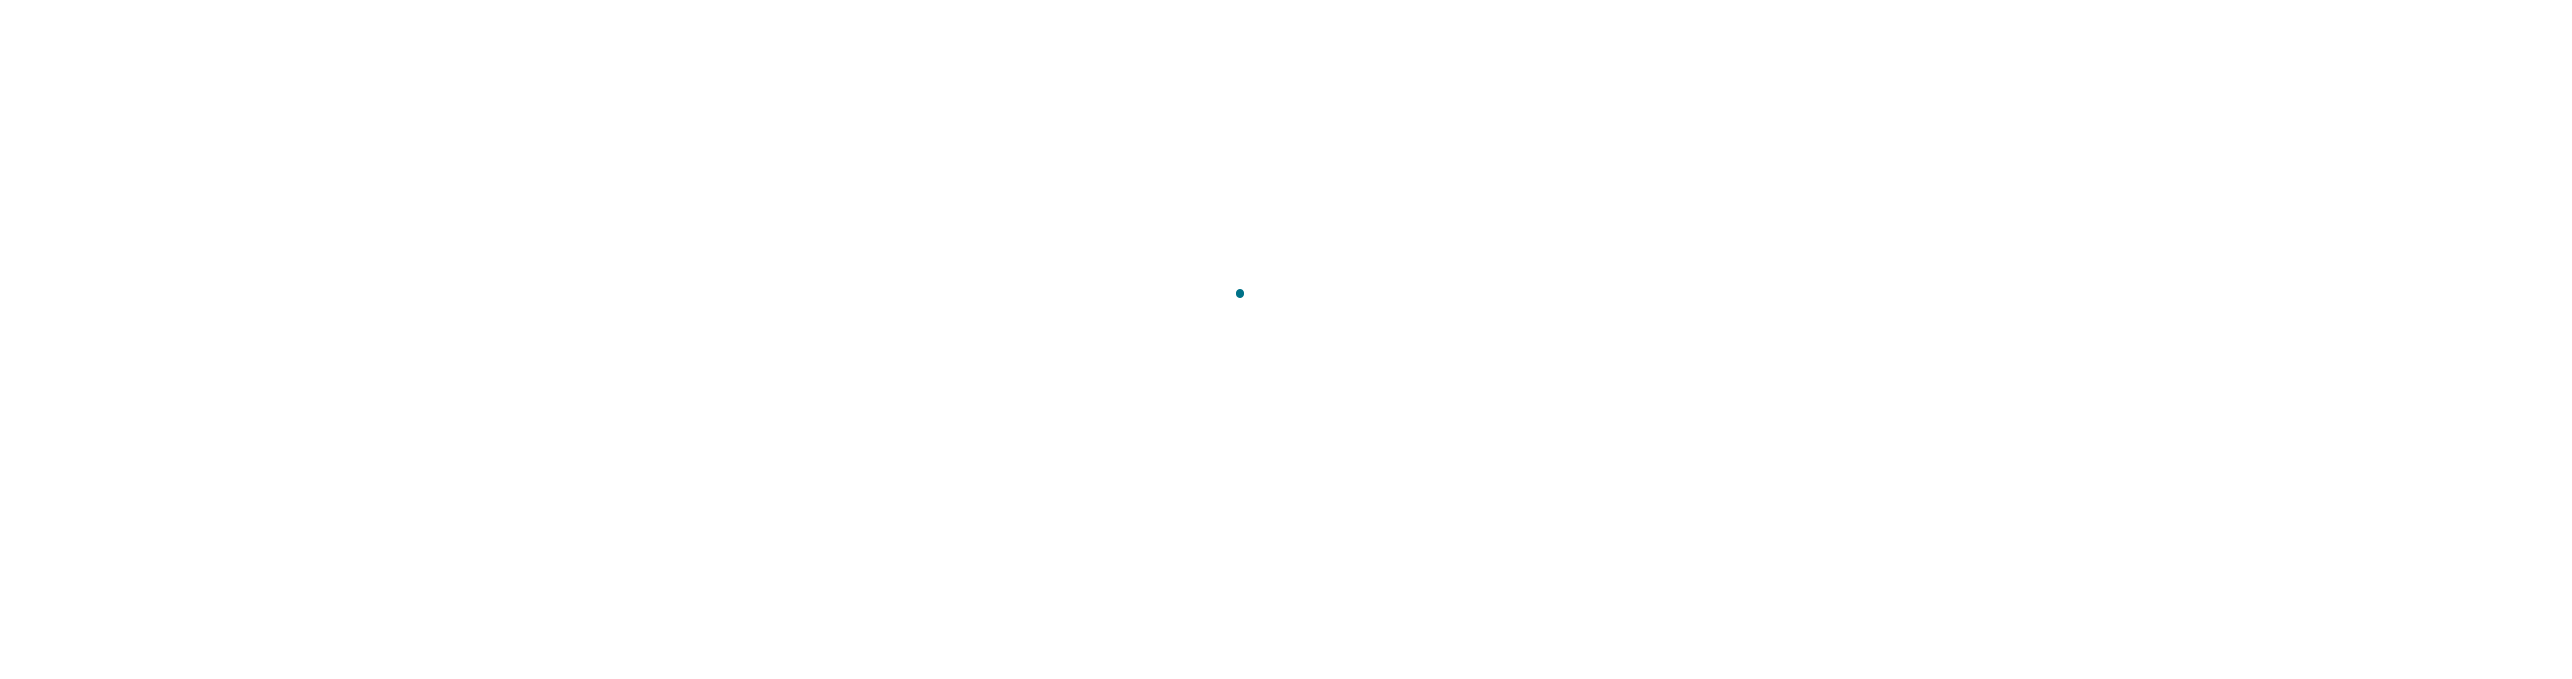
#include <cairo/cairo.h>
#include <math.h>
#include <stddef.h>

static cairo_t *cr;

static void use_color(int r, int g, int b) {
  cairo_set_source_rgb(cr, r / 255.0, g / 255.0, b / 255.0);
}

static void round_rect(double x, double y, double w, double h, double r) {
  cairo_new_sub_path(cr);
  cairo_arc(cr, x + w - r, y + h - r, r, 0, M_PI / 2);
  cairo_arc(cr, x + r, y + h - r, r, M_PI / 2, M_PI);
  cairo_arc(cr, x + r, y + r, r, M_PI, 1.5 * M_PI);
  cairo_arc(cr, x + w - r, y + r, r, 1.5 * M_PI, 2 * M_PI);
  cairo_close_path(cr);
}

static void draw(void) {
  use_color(255, 255, 255);
  cairo_paint(cr);
  use_color(0, 114, 136);
  round_rect(1236, 289, 8, 9, 4);
  cairo_fill(cr);
}

int main(void) {
  cairo_surface_t *surface = cairo_image_surface_create(CAIRO_FORMAT_RGB24, 2572, 679);
  cr = cairo_create(surface);
  cairo_font_options_t *options = cairo_font_options_create();
  cairo_font_options_set_hint_metrics(options, CAIRO_HINT_METRICS_OFF);
  cairo_font_options_set_hint_style(options, CAIRO_HINT_STYLE_NONE);
  cairo_set_font_options(cr, options);
  cairo_set_miter_limit(cr, 4);
  draw();
  cairo_surface_write_to_png(surface, "out.png");
  cairo_font_options_destroy(options);
  cairo_destroy(cr);
  cairo_surface_destroy(surface);
  return 0;
}
